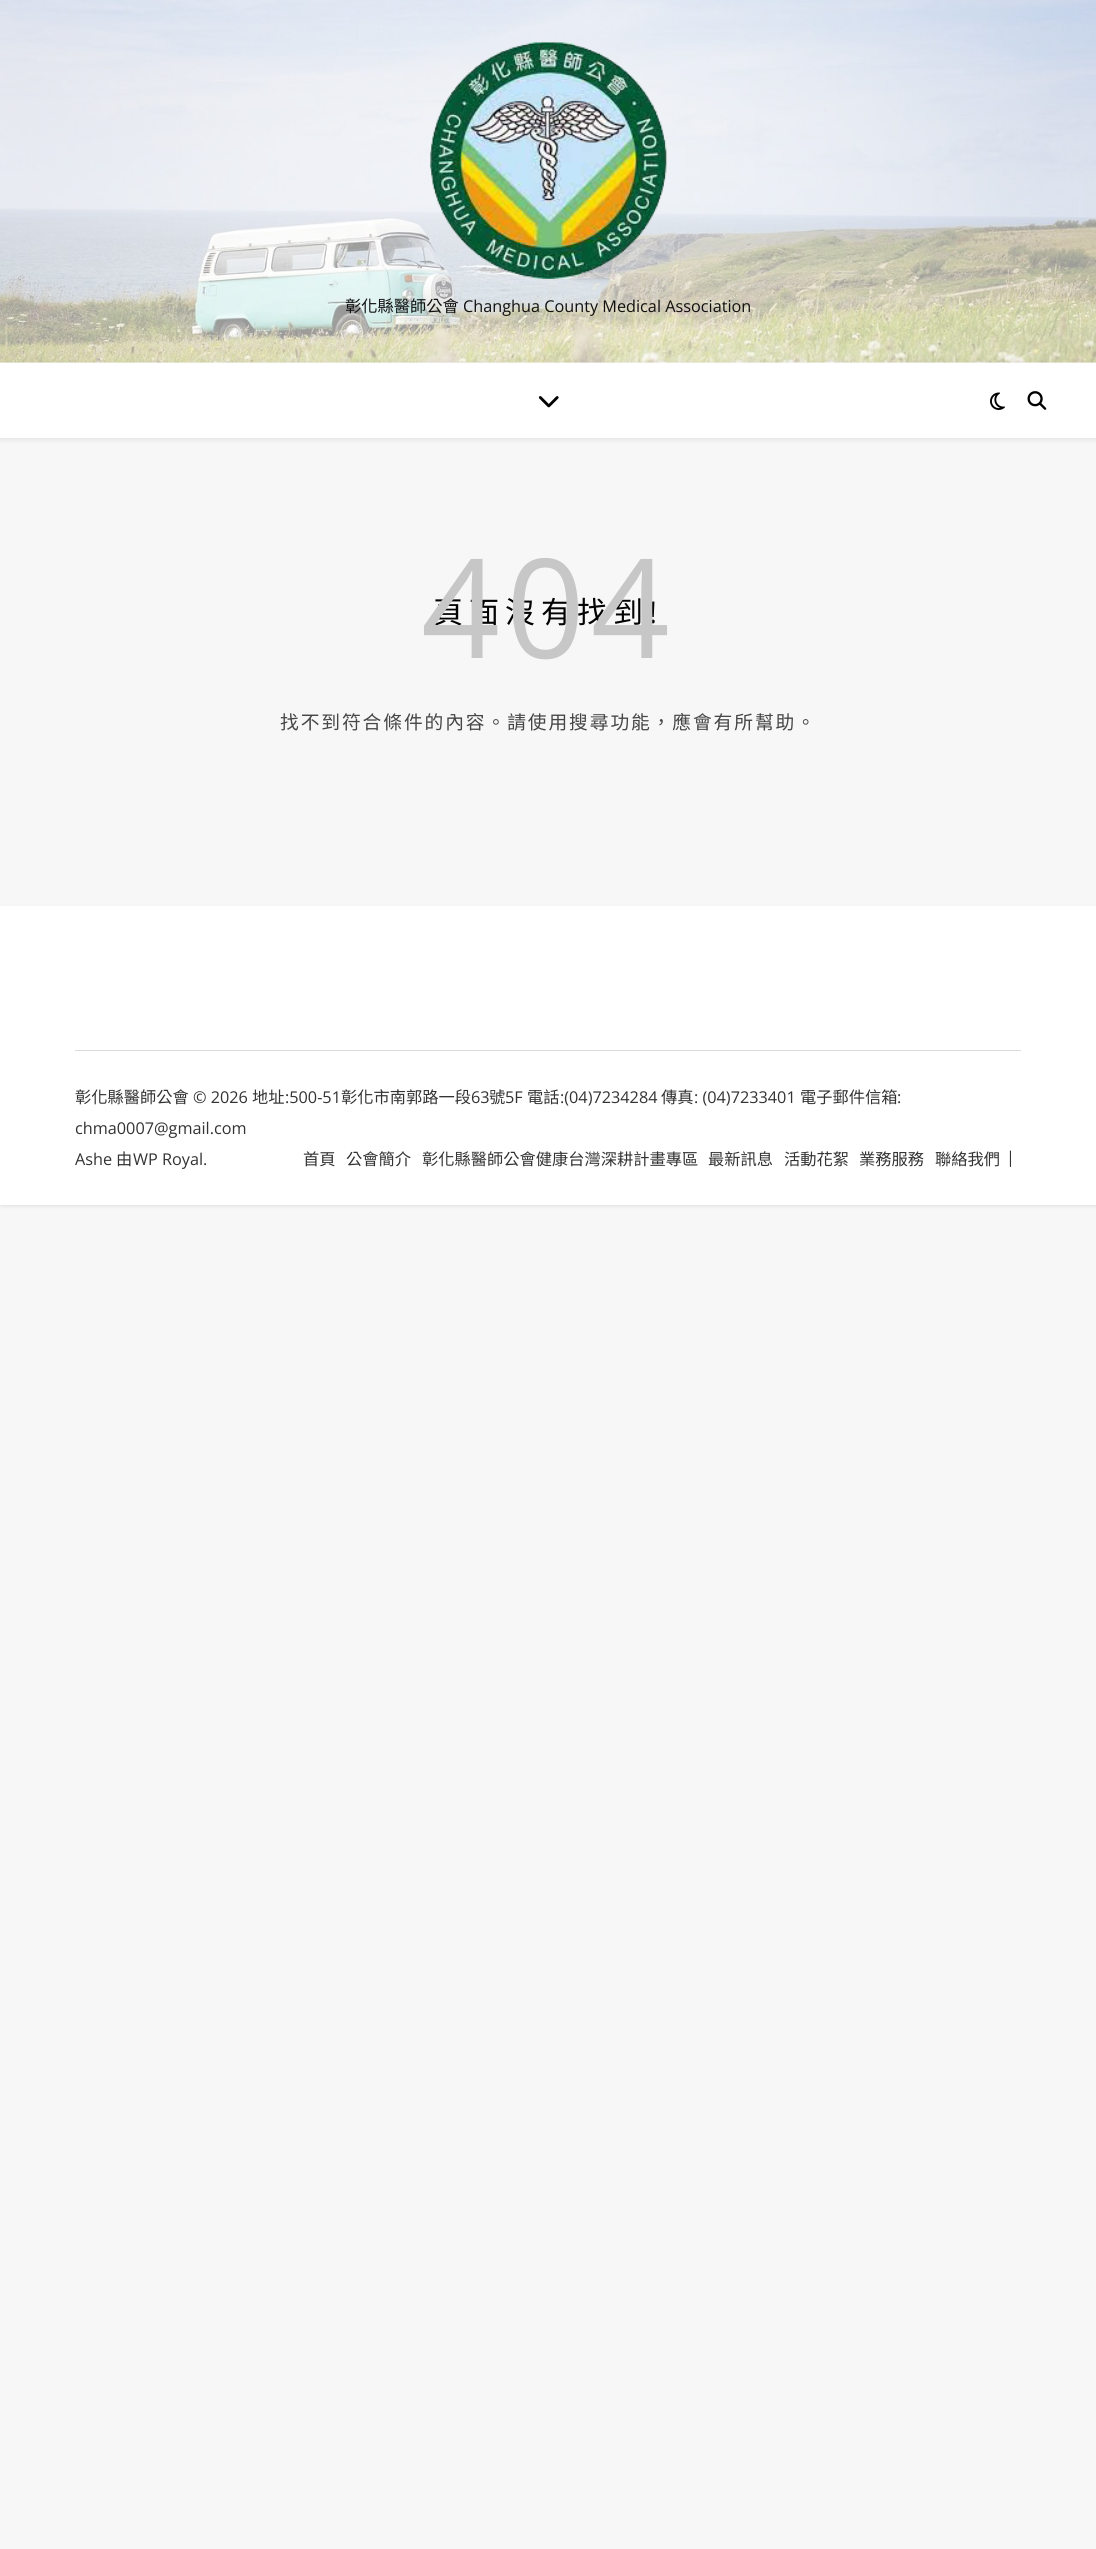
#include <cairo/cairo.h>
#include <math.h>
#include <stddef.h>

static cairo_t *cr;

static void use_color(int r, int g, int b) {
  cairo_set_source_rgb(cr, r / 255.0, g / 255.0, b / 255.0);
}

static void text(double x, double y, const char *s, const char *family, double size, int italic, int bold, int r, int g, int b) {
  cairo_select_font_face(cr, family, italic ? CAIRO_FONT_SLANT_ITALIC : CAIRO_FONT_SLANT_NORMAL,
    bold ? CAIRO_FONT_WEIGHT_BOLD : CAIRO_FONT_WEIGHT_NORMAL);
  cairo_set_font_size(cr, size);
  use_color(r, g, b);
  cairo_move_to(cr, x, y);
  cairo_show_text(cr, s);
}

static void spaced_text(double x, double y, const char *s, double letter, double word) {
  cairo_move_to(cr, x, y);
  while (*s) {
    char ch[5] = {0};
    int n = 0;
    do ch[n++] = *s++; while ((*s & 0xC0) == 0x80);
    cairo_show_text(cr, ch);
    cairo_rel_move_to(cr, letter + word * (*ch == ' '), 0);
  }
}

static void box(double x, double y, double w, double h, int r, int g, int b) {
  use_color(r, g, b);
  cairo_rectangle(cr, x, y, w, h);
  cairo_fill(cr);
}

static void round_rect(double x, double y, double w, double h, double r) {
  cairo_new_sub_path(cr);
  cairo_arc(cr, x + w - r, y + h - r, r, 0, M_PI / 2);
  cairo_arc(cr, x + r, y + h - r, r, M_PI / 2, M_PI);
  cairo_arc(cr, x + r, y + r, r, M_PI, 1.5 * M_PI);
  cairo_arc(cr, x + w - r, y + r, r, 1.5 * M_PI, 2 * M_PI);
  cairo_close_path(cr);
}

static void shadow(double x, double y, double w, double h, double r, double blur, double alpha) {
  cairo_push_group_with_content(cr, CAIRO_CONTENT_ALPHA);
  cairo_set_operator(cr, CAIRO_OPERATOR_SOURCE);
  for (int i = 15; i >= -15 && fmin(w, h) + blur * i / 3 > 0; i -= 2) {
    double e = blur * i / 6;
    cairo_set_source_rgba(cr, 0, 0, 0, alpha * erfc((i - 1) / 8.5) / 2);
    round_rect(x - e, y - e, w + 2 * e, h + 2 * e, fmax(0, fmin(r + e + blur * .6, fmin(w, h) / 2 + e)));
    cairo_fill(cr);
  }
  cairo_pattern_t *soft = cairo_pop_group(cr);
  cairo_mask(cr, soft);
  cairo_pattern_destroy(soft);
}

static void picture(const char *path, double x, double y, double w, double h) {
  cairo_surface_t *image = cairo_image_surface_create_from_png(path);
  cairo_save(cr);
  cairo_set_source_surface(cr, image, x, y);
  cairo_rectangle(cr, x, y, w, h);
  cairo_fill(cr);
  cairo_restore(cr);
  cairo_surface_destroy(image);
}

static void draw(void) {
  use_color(247, 247, 247);
  cairo_paint(cr);
  box(0, 362, 1096, 1, 255, 255, 255);
  picture("img_01.png", 0, 0, 1096, 363);
  picture("img_02.png", 430, 42, 237, 237);
  use_color(0, 0, 0);
  shadow(0, 364, 1096, 75, 0, 3, 0.1);
  box(0, 363, 1096, 75, 255, 255, 255);
  picture("img_03.png", 538, 396, 21, 12);
  picture("img_04.png", 990, 392, 15, 18);
  picture("img_05.png", 1027, 391, 20, 19);
  use_color(0, 0, 0);
  shadow(1, 908, 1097, 298, 0, 2, 0.1);
  box(0, 906, 1096, 299, 255, 255, 255);
  box(75, 1050, 946, 1, 224, 219, 219);
  text(345, 312, "彰化縣醫師公會", "Noto Sans CJK TC", 16.25, 0, 0, 17, 17, 17);
  text(463, 312, "Changhua County Medical Association", "Open Sans", 16.25, 0, 0, 17, 17, 17);
  cairo_select_font_face(cr, "Noto Sans CJK TC", CAIRO_FONT_SLANT_NORMAL, CAIRO_FONT_WEIGHT_NORMAL);
  cairo_set_font_size(cr, 30);
  use_color(3, 3, 3);
  spaced_text(433, 623, "頁面沒有找到", 6, 0);
  cairo_select_font_face(cr, "Open Sans", CAIRO_FONT_SLANT_NORMAL, CAIRO_FONT_WEIGHT_NORMAL);
  spaced_text(649, 623, "!", 6, 0);
  cairo_set_font_size(cr, 138);
  use_color(199, 199, 199);
  spaced_text(421, 658, "404", 6, 0);
  cairo_select_font_face(cr, "Noto Sans CJK TC", CAIRO_FONT_SLANT_NORMAL, CAIRO_FONT_WEIGHT_NORMAL);
  cairo_set_font_size(cr, 18.75);
  use_color(70, 70, 70);
  spaced_text(280, 729, "找不到符合條件的內容。請使用搜尋功能，應會有所幫助。", 1.9, 0);
  text(75, 1103, "彰化縣醫師公會", "Noto Sans CJK TC", 16.25, 0, 0, 51, 51, 51);
  text(193, 1103, "© 2026", "Open Sans", 16.25, 0, 0, 51, 51, 51);
  text(252, 1103, "地址", "Noto Sans CJK TC", 16.25, 0, 0, 51, 51, 51);
  text(285, 1103, ":500-51", "Open Sans", 16.25, 0, 0, 51, 51, 51);
  text(341, 1103, "彰化市南郭路一段", "Noto Sans CJK TC", 16.25, 0, 0, 51, 51, 51);
  text(471, 1103, "63", "Open Sans", 16.25, 0, 0, 51, 51, 51);
  text(489, 1103, "號", "Noto Sans CJK TC", 16.25, 0, 0, 51, 51, 51);
  text(505, 1103, "5F", "Open Sans", 16.25, 0, 0, 51, 51, 51);
  text(527, 1103, "電話", "Noto Sans CJK TC", 16.25, 0, 0, 51, 51, 51);
  text(560, 1103, ":(04)7234284", "Open Sans", 16.25, 0, 0, 51, 51, 51);
  text(661, 1103, "傳真", "Noto Sans CJK TC", 16.25, 0, 0, 51, 51, 51);
  text(694, 1103, ": (04)7233401", "Open Sans", 16.25, 0, 0, 51, 51, 51);
  text(800, 1103, "電子郵件信箱", "Noto Sans CJK TC", 16.25, 0, 0, 51, 51, 51);
  text(897, 1103, ":", "Open Sans", 16.25, 0, 0, 51, 51, 51);
  text(75, 1134, "chma0007@gmail.com", "Open Sans", 16.25, 0, 0, 51, 51, 51);
  text(75, 1165, "Ashe", "Open Sans", 16.25, 0, 0, 51, 51, 51);
  text(116, 1165, "由", "Noto Sans CJK TC", 16.25, 0, 0, 51, 51, 51);
  text(133, 1165, "WP Royal.", "Open Sans", 16.25, 0, 0, 51, 51, 51);
  text(303, 1165, "首頁", "Noto Sans CJK TC", 16.25, 0, 0, 51, 51, 51);
  text(346, 1165, "公會簡介", "Noto Sans CJK TC", 16.25, 0, 0, 51, 51, 51);
  text(422, 1165, "彰化縣醫師公會健康台灣深耕計畫專區", "Noto Sans CJK TC", 16.25, 0, 0, 51, 51, 51);
  text(708, 1165, "最新訊息", "Noto Sans CJK TC", 16.25, 0, 0, 51, 51, 51);
  text(784, 1165, "活動花絮", "Noto Sans CJK TC", 16.25, 0, 0, 51, 51, 51);
  text(859, 1165, "業務服務", "Noto Sans CJK TC", 16.25, 0, 0, 51, 51, 51);
  text(935, 1165, "聯絡我們", "Noto Sans CJK TC", 16.25, 0, 0, 51, 51, 51);
  text(1006, 1163, "|", "Open Sans", 16.25, 0, 0, 51, 51, 51);
}

int main(void) {
  cairo_surface_t *surface = cairo_image_surface_create(CAIRO_FORMAT_RGB24, 1096, 2549);
  cr = cairo_create(surface);
  cairo_font_options_t *options = cairo_font_options_create();
  cairo_font_options_set_hint_metrics(options, CAIRO_HINT_METRICS_OFF);
  cairo_font_options_set_hint_style(options, CAIRO_HINT_STYLE_NONE);
  cairo_set_font_options(cr, options);
  cairo_set_miter_limit(cr, 4);
  draw();
  cairo_surface_write_to_png(surface, "out.png");
  cairo_font_options_destroy(options);
  cairo_destroy(cr);
  cairo_surface_destroy(surface);
  return 0;
}
